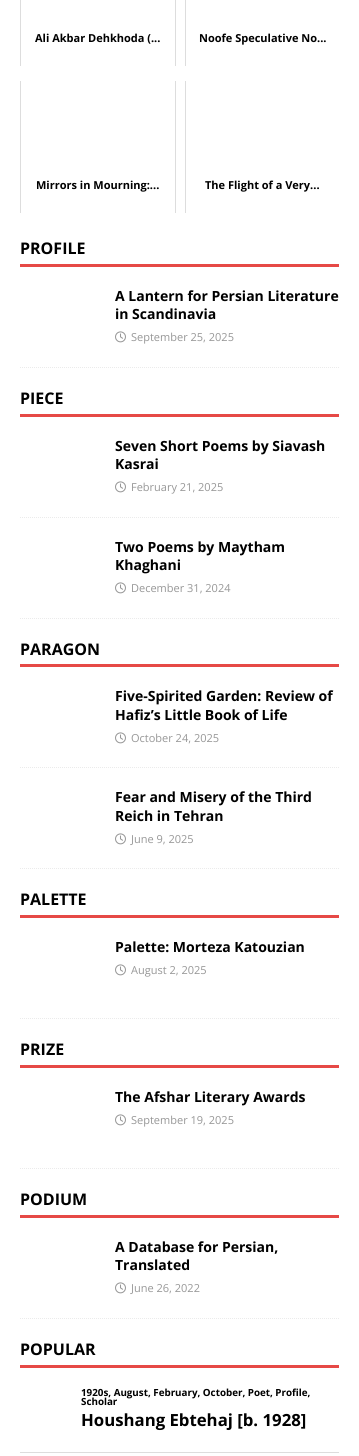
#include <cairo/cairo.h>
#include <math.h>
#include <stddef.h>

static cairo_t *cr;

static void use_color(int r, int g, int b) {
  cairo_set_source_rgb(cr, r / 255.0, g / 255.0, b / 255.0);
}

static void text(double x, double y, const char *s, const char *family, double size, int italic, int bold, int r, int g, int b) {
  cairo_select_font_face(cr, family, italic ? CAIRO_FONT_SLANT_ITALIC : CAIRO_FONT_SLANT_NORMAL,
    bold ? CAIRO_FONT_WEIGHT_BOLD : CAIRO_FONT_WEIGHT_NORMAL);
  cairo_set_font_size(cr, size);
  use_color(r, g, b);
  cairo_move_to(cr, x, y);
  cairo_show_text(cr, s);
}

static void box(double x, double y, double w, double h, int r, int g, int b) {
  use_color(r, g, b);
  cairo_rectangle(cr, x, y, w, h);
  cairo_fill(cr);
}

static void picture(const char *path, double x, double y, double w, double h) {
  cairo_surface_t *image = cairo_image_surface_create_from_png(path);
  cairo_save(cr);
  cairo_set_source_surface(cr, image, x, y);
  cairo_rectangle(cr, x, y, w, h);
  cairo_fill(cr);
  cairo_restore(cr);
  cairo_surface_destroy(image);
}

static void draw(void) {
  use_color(255, 255, 255);
  cairo_paint(cr);
  box(175, 0, 1, 66, 221, 221, 221);
  box(20, 0, 1, 66, 221, 221, 221);
  box(185, 0, 1, 66, 221, 221, 221);
  box(175, 81, 1, 132, 221, 221, 221);
  box(20, 81, 1, 132, 221, 221, 221);
  box(185, 81, 1, 132, 221, 221, 221);
  box(20, 264, 319, 3, 230, 73, 70);
  cairo_new_path(cr);
  cairo_move_to(cr, 20, 367.5);
  cairo_line_to(cr, 339, 367.5);
  use_color(235, 235, 235);
  cairo_set_line_width(cr, 1);
  cairo_set_dash(cr, (double[]){1, 1}, 2, 0);
  cairo_stroke(cr);
  picture("img_01.png", 115, 331, 11, 12);
  box(20, 414, 319, 3, 230, 73, 70);
  cairo_new_path(cr);
  cairo_move_to(cr, 20, 517.5);
  cairo_line_to(cr, 339, 517.5);
  use_color(235, 235, 235);
  cairo_stroke(cr);
  picture("img_01.png", 115, 481, 11, 12);
  cairo_new_path(cr);
  cairo_move_to(cr, 20, 618.5);
  cairo_line_to(cr, 339, 618.5);
  cairo_stroke(cr);
  picture("img_01.png", 115, 582, 11, 12);
  box(20, 664, 319, 3, 230, 73, 70);
  cairo_new_path(cr);
  cairo_move_to(cr, 20, 767.5);
  cairo_line_to(cr, 339, 767.5);
  use_color(235, 235, 235);
  cairo_stroke(cr);
  picture("img_01.png", 115, 732, 11, 12);
  cairo_new_path(cr);
  cairo_move_to(cr, 20, 868.5);
  cairo_line_to(cr, 339, 868.5);
  cairo_stroke(cr);
  picture("img_01.png", 115, 833, 11, 12);
  box(20, 915, 319, 3, 230, 73, 70);
  cairo_new_path(cr);
  cairo_move_to(cr, 20, 1018.5);
  cairo_line_to(cr, 339, 1018.5);
  use_color(235, 235, 235);
  cairo_stroke(cr);
  picture("img_01.png", 115, 964, 11, 12);
  box(20, 1065, 319, 3, 230, 73, 70);
  cairo_new_path(cr);
  cairo_move_to(cr, 20, 1168.5);
  cairo_line_to(cr, 339, 1168.5);
  use_color(235, 235, 235);
  cairo_stroke(cr);
  picture("img_01.png", 115, 1114, 11, 12);
  box(20, 1215, 319, 3, 230, 73, 70);
  cairo_new_path(cr);
  cairo_move_to(cr, 20, 1318.5);
  cairo_line_to(cr, 339, 1318.5);
  use_color(235, 235, 235);
  cairo_stroke(cr);
  picture("img_01.png", 115, 1282, 11, 12);
  box(20, 1365, 319, 3, 230, 73, 70);
  box(20, 1452, 319, 1, 221, 221, 221);
  text(35, 42, "Ali Akbar Dehkhoda (...", "Open Sans", 11, 0, 1, 0, 0, 0);
  text(199, 42, "Noofe Speculative No...", "Open Sans", 11, 0, 1, 0, 0, 0);
  text(36, 189, "Mirrors in Mourning:...", "Open Sans", 11, 0, 1, 0, 0, 0);
  text(205, 189, "The Flight of a Very...", "Open Sans", 11, 0, 1, 0, 0, 0);
  text(20, 254, "PROFILE", "Open Sans", 16, 0, 1, 0, 0, 0);
  text(115, 301, "A Lantern for Persian Literature", "Open Sans", 14, 0, 1, 0, 0, 0);
  text(115, 319, "in Scandinavia", "Open Sans", 14, 0, 1, 0, 0, 0);
  text(131, 341, "September 25, 2025", "Open Sans", 11, 0, 0, 151, 151, 151);
  text(20, 404, "PIECE", "Open Sans", 16, 0, 1, 0, 0, 0);
  text(115, 451, "Seven Short Poems by Siavash", "Open Sans", 14, 0, 1, 0, 0, 0);
  text(115, 469, "Kasrai", "Open Sans", 14, 0, 1, 0, 0, 0);
  text(131, 491, "February 21, 2025", "Open Sans", 11, 0, 0, 151, 151, 151);
  text(115, 552, "Two Poems by Maytham", "Open Sans", 14, 0, 1, 0, 0, 0);
  text(115, 570, "Khaghani", "Open Sans", 14, 0, 1, 0, 0, 0);
  text(131, 592, "December 31, 2024", "Open Sans", 11, 0, 0, 151, 151, 151);
  text(20, 655, "PARAGON", "Open Sans", 16, 0, 1, 0, 0, 0);
  text(115, 701, "Five-Spirited Garden: Review of", "Open Sans", 14, 0, 1, 0, 0, 0);
  text(115, 720, "Hafiz’s Little Book of Life", "Open Sans", 14, 0, 1, 0, 0, 0);
  text(131, 742, "October 24, 2025", "Open Sans", 11, 0, 0, 151, 151, 151);
  text(115, 802, "Fear and Misery of the Third", "Open Sans", 14, 0, 1, 0, 0, 0);
  text(115, 821, "Reich in Tehran", "Open Sans", 14, 0, 1, 0, 0, 0);
  text(131, 843, "June 9, 2025", "Open Sans", 11, 0, 0, 151, 151, 151);
  text(20, 905, "PALETTE", "Open Sans", 16, 0, 1, 0, 0, 0);
  text(115, 952, "Palette: Morteza Katouzian", "Open Sans", 14, 0, 1, 0, 0, 0);
  text(131, 974, "August 2, 2025", "Open Sans", 11, 0, 0, 151, 151, 151);
  text(20, 1055, "PRIZE", "Open Sans", 16, 0, 1, 0, 0, 0);
  text(115, 1102, "The Afshar Literary Awards", "Open Sans", 14, 0, 1, 0, 0, 0);
  text(131, 1124, "September 19, 2025", "Open Sans", 11, 0, 0, 151, 151, 151);
  text(20, 1205, "PODIUM", "Open Sans", 16, 0, 1, 0, 0, 0);
  text(115, 1252, "A Database for Persian,", "Open Sans", 14, 0, 1, 0, 0, 0);
  text(115, 1270, "Translated", "Open Sans", 14, 0, 1, 0, 0, 0);
  text(131, 1292, "June 26, 2022", "Open Sans", 11, 0, 0, 151, 151, 151);
  text(20, 1355, "POPULAR", "Open Sans", 16, 0, 1, 0, 0, 0);
  text(81, 1396, "1920s, August, February, October, Poet, Profile,", "Open Sans", 9.8, 0, 1, 0, 0, 0);
  text(81, 1405, "Scholar", "Open Sans", 9.8, 0, 1, 0, 0, 0);
  text(81, 1426, "Houshang Ebtehaj [b. 1928]", "Open Sans", 16.75, 0, 1, 0, 0, 0);
}

int main(void) {
  cairo_surface_t *surface = cairo_image_surface_create(CAIRO_FORMAT_RGB24, 359, 1456);
  cr = cairo_create(surface);
  cairo_font_options_t *options = cairo_font_options_create();
  cairo_font_options_set_hint_metrics(options, CAIRO_HINT_METRICS_OFF);
  cairo_font_options_set_hint_style(options, CAIRO_HINT_STYLE_NONE);
  cairo_set_font_options(cr, options);
  cairo_set_miter_limit(cr, 4);
  draw();
  cairo_surface_write_to_png(surface, "out.png");
  cairo_font_options_destroy(options);
  cairo_destroy(cr);
  cairo_surface_destroy(surface);
  return 0;
}
